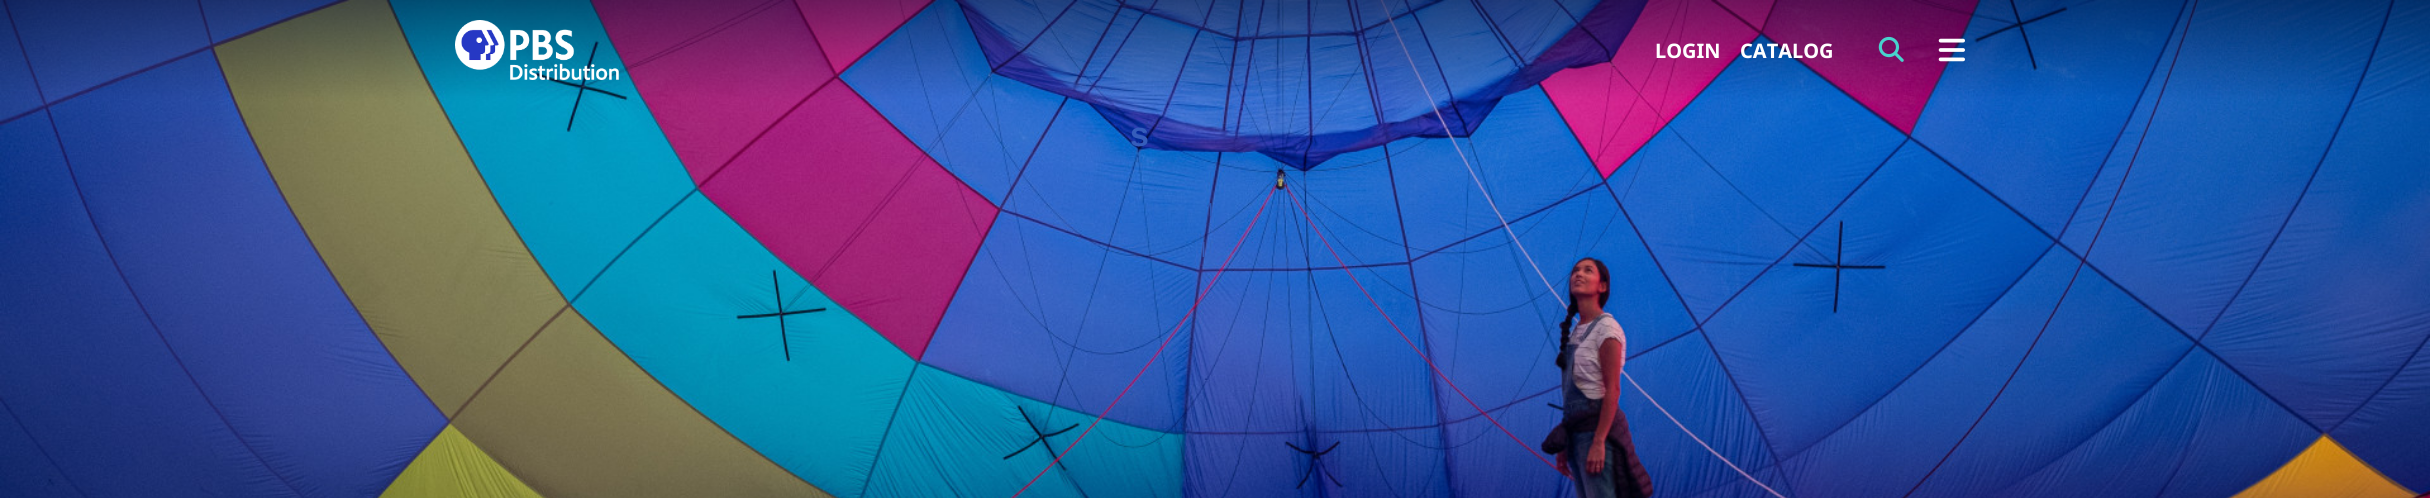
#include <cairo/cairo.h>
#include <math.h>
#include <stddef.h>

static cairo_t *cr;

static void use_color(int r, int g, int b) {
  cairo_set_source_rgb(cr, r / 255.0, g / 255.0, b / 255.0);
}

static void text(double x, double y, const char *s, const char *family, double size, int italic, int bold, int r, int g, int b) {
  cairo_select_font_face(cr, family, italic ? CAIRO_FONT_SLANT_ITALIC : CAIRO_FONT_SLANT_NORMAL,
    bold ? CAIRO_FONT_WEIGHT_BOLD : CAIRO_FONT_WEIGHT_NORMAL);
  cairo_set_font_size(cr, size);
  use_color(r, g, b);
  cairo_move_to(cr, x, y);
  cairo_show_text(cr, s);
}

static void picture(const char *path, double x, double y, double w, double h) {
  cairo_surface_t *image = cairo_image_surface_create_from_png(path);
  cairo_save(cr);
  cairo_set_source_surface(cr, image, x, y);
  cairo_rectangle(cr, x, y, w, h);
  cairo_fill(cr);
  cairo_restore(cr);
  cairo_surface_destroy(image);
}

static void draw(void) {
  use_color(255, 255, 255);
  cairo_paint(cr);
  picture("img_04.png", 0, 0, 2430, 498);
  picture("img_01.png", 455, 20, 164, 60);
  picture("img_02.png", 1878, 36, 26, 26);
  picture("img_03.png", 1938, 38, 27, 24);
  text(1655, 58, "LOGIN", "Noto Sans", 20, 0, 1, 255, 255, 255);
  text(1740, 58, "CATALOG", "Noto Sans", 20, 0, 1, 255, 255, 255);
  text(1130, 146, "s", "Liberation Sans", 34, 0, 1, 53, 93, 187);
  text(1205, 216, "1", "Noto Sans", 18, 0, 0, 42, 91, 183);
  text(1201, 257, "l", "Noto Sans", 20, 0, 0, 53, 93, 187);
}

int main(void) {
  cairo_surface_t *surface = cairo_image_surface_create(CAIRO_FORMAT_RGB24, 2430, 498);
  cr = cairo_create(surface);
  cairo_font_options_t *options = cairo_font_options_create();
  cairo_font_options_set_hint_metrics(options, CAIRO_HINT_METRICS_OFF);
  cairo_font_options_set_hint_style(options, CAIRO_HINT_STYLE_NONE);
  cairo_set_font_options(cr, options);
  cairo_set_miter_limit(cr, 4);
  draw();
  cairo_surface_write_to_png(surface, "out.png");
  cairo_font_options_destroy(options);
  cairo_destroy(cr);
  cairo_surface_destroy(surface);
  return 0;
}
